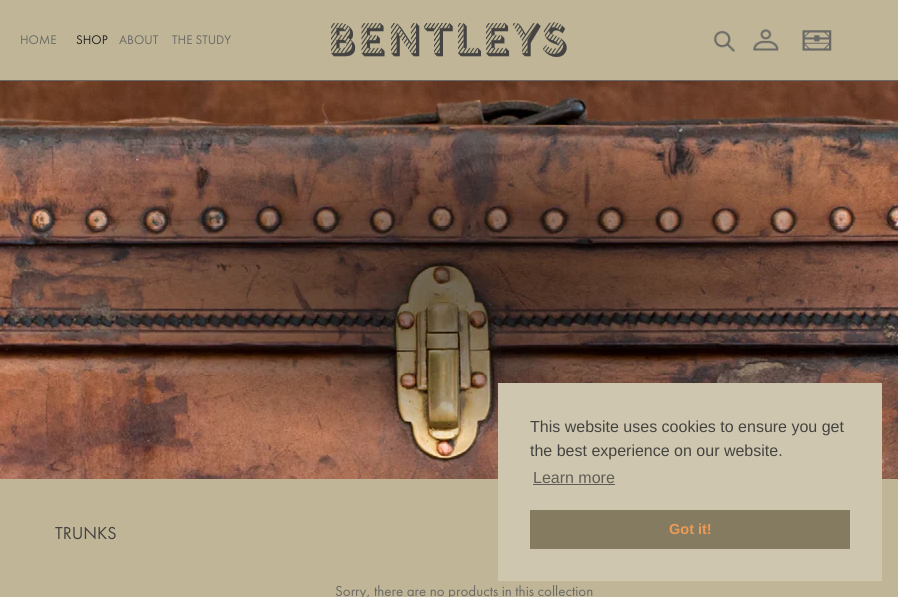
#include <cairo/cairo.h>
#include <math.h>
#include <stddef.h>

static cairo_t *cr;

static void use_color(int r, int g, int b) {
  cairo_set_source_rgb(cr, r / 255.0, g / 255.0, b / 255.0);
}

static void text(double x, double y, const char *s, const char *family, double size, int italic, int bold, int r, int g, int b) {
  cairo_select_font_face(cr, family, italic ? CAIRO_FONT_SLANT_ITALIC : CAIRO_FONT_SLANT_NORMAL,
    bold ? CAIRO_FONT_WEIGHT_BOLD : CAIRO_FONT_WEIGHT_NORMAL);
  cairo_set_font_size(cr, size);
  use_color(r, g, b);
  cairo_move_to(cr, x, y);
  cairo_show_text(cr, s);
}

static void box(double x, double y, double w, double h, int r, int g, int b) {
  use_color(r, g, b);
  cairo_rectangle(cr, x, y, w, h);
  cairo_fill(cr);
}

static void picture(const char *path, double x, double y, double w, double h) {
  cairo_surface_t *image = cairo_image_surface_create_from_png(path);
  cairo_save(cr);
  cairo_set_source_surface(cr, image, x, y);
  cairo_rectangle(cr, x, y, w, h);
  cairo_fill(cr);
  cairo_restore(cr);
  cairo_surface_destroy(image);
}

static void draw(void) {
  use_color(192, 182, 151);
  cairo_paint(cr);
  box(0, 80, 898, 1, 107, 106, 102);
  picture("img_01.png", 331, 22, 236, 35);
  picture("img_02.png", 713, 30, 22, 22);
  picture("img_03.png", 753, 29, 26, 22);
  picture("img_04.png", 802, 30, 30, 21);
  picture("img_05.png", 0, 81, 898, 398);
  box(498, 383, 384, 198, 206, 198, 174);
  box(533, 484, 82, 1, 96, 93, 87);
  box(530, 510, 320, 39, 132, 123, 96);
  text(20, 44, "HOME", "Futura PT", 13, 0, 0, 107, 106, 102);
  text(76, 44, "SHOP", "Futura PT", 13, 0, 0, 34, 34, 34);
  text(119, 44, "ABOUT", "Futura PT", 13, 0, 0, 107, 106, 102);
  text(172, 44, "THE STUDY", "Futura PT", 13, 0, 0, 107, 106, 102);
  text(530, 432, "This website uses cookies to ensure you get", "Liberation Sans", 16, 0, 0, 68, 67, 65);
  text(530, 456, "the best experience on our website.", "Liberation Sans", 16, 0, 0, 68, 67, 65);
  text(533, 483, "Learn more", "Liberation Sans", 16, 0, 0, 96, 93, 87);
  text(669, 534, "Got it!", "Liberation Sans", 14.5, 0, 1, 235, 155, 85);
  text(55, 539, "TRUNKS", "Futura PT", 18, 0, 0, 68, 67, 65);
  text(335, 596, "Sorry, there are no products in this collection", "Futura PT", 15, 0, 0, 107, 106, 102);
}

int main(void) {
  cairo_surface_t *surface = cairo_image_surface_create(CAIRO_FORMAT_RGB24, 898, 597);
  cr = cairo_create(surface);
  cairo_font_options_t *options = cairo_font_options_create();
  cairo_font_options_set_hint_metrics(options, CAIRO_HINT_METRICS_OFF);
  cairo_font_options_set_hint_style(options, CAIRO_HINT_STYLE_NONE);
  cairo_set_font_options(cr, options);
  cairo_set_miter_limit(cr, 4);
  draw();
  cairo_surface_write_to_png(surface, "out.png");
  cairo_font_options_destroy(options);
  cairo_destroy(cr);
  cairo_surface_destroy(surface);
  return 0;
}
